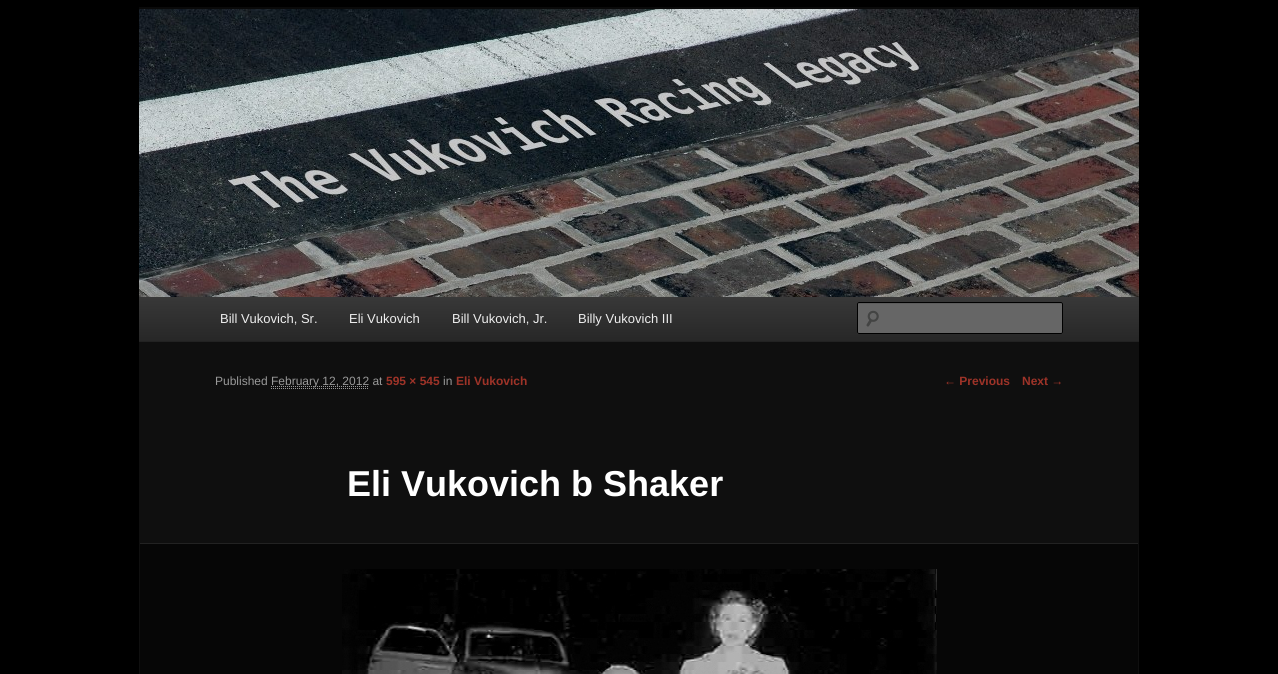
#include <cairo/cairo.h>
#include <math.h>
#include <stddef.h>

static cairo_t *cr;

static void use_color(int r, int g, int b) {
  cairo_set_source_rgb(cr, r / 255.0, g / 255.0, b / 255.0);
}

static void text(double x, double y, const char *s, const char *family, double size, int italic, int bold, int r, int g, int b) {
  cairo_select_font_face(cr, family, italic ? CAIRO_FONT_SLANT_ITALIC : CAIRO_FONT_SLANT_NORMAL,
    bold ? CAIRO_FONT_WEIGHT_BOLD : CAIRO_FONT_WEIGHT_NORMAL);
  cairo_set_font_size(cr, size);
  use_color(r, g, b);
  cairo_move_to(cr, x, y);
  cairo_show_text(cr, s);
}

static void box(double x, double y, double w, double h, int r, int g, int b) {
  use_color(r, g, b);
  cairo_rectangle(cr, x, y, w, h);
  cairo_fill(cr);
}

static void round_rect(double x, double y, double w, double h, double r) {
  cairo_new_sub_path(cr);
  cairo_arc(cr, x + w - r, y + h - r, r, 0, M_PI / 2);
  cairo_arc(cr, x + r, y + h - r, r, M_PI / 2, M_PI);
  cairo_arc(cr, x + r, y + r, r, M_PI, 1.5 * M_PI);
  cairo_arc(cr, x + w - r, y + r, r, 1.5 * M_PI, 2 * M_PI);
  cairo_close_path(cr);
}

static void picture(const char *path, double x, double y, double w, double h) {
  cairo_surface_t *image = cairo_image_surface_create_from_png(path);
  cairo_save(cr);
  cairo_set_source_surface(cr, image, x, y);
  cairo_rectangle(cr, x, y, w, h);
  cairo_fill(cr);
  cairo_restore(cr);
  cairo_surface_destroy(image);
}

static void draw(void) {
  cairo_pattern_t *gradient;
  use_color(0, 0, 0);
  cairo_paint(cr);
  box(139, 342, 1000, 332, 15, 15, 15);
  box(139, 7, 1000, 2, 10, 10, 10);
  picture("img_01.png", 139, 9, 1000, 288);
  gradient = cairo_pattern_create_linear(639, 297, 639, 341);
  cairo_pattern_add_color_stop_rgba(gradient, 0, 0.22, 0.22, 0.22, 1);
  cairo_pattern_add_color_stop_rgba(gradient, 1, 0.153, 0.153, 0.153, 1);
  cairo_set_source(cr, gradient);
  cairo_pattern_destroy(gradient);
  cairo_rectangle(cr, 139, 297, 1000, 44);
  cairo_fill(cr);
  box(139, 341, 1000, 1, 34, 34, 34);
  use_color(102, 102, 102);
  round_rect(857, 302, 206, 32, 2);
  cairo_fill(cr);
  picture("img_02.png", 866, 310, 13, 17);
  use_color(92, 92, 92);
  cairo_new_path(cr);
  cairo_move_to(cr, 859, 304);
  cairo_line_to(cr, 1062, 304);
  cairo_line_to(cr, 1062, 305);
  cairo_line_to(cr, 1062, 303);
  cairo_line_to(cr, 1061, 303);
  cairo_line_to(cr, 859, 303);
  cairo_curve_to(cr, 858, 303, 858, 304, 858, 305);
  cairo_curve_to(cr, 858, 304, 858, 304, 859, 304);
  cairo_close_path(cr);
  cairo_fill(cr);
  round_rect(857.5, 302.5, 205, 31, 1.5);
  use_color(0, 0, 0);
  cairo_set_line_width(cr, 1);
  cairo_stroke(cr);
  cairo_new_path(cr);
  cairo_move_to(cr, 271, 388.5);
  cairo_line_to(cr, 369, 388.5);
  use_color(153, 153, 153);
  cairo_set_dash(cr, (double[]){1, 1}, 2, 0);
  cairo_stroke(cr);
  cairo_new_path(cr);
  cairo_move_to(cr, 271, 386.5);
  cairo_line_to(cr, 369, 386.5);
  cairo_stroke(cr);
  box(140, 544, 998, 130, 6, 6, 6);
  box(140, 543, 998, 1, 34, 34, 34);
  picture("img_03.png", 342, 569, 595, 105);
  text(220, 323, "Bill Vukovich, Sr.", "Liberation Sans", 13, 0, 0, 238, 238, 238);
  text(349, 323, "Eli Vukovich", "Liberation Sans", 13, 0, 0, 238, 238, 238);
  text(452, 323, "Bill Vukovich, Jr.", "Liberation Sans", 13, 0, 0, 238, 238, 238);
  text(578, 323, "Billy Vukovich III", "Liberation Sans", 13, 0, 0, 238, 238, 238);
  text(215, 385, "Published", "Liberation Sans", 12, 0, 0, 153, 153, 153);
  text(271, 385, "February 12, 2012 at", "Liberation Sans", 12, 0, 0, 153, 153, 153);
  text(386, 385, "595 × 545", "Liberation Sans", 12, 0, 1, 158, 51, 40);
  text(443, 385, "in", "Liberation Sans", 12, 0, 0, 153, 153, 153);
  text(456, 385, "Eli Vukovich", "Liberation Sans", 12, 0, 1, 158, 51, 40);
  text(347, 496, "Eli Vukovich b Shaker", "Liberation Sans", 36, 0, 1, 255, 255, 255);
  text(944, 385, "← Previous", "Liberation Sans", 12, 0, 1, 158, 51, 40);
  text(1022, 385, "Next →", "Liberation Sans", 12, 0, 1, 158, 51, 40);
}

int main(void) {
  cairo_surface_t *surface = cairo_image_surface_create(CAIRO_FORMAT_RGB24, 1278, 674);
  cr = cairo_create(surface);
  cairo_font_options_t *options = cairo_font_options_create();
  cairo_font_options_set_hint_metrics(options, CAIRO_HINT_METRICS_OFF);
  cairo_font_options_set_hint_style(options, CAIRO_HINT_STYLE_NONE);
  cairo_set_font_options(cr, options);
  cairo_set_miter_limit(cr, 4);
  draw();
  cairo_surface_write_to_png(surface, "out.png");
  cairo_font_options_destroy(options);
  cairo_destroy(cr);
  cairo_surface_destroy(surface);
  return 0;
}
